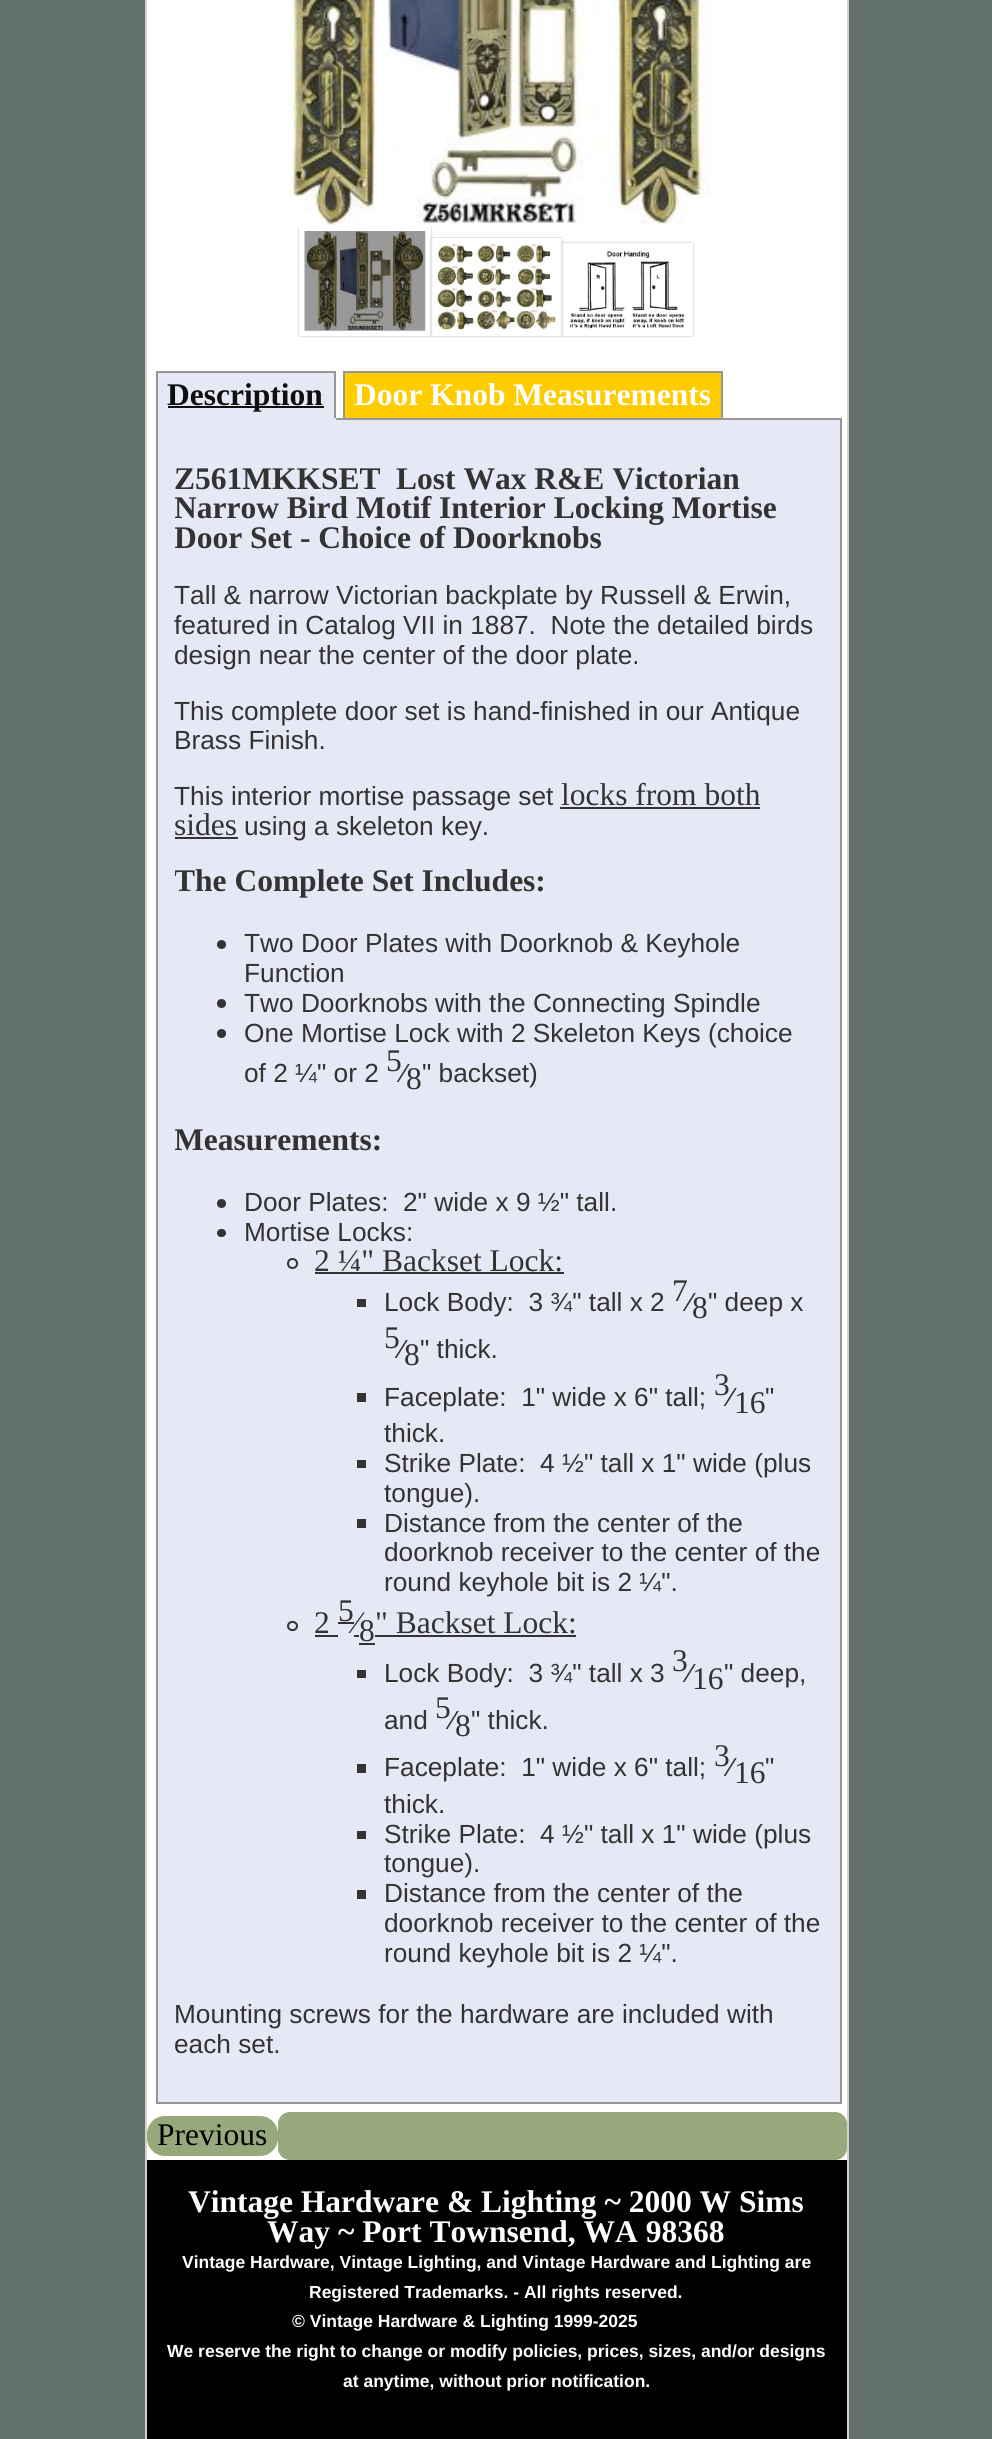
#include <cairo/cairo.h>
#include <math.h>
#include <stddef.h>

static cairo_t *cr;

static void use_color(int r, int g, int b) {
  cairo_set_source_rgb(cr, r / 255.0, g / 255.0, b / 255.0);
}

static void text(double x, double y, const char *s, const char *family, double size, int italic, int bold, int r, int g, int b) {
  cairo_select_font_face(cr, family, italic ? CAIRO_FONT_SLANT_ITALIC : CAIRO_FONT_SLANT_NORMAL,
    bold ? CAIRO_FONT_WEIGHT_BOLD : CAIRO_FONT_WEIGHT_NORMAL);
  cairo_set_font_size(cr, size);
  use_color(r, g, b);
  cairo_move_to(cr, x, y);
  cairo_show_text(cr, s);
}

static void box(double x, double y, double w, double h, int r, int g, int b) {
  use_color(r, g, b);
  cairo_rectangle(cr, x, y, w, h);
  cairo_fill(cr);
}

static void round_rect(double x, double y, double w, double h, double r) {
  cairo_new_sub_path(cr);
  cairo_arc(cr, x + w - r, y + h - r, r, 0, M_PI / 2);
  cairo_arc(cr, x + r, y + h - r, r, M_PI / 2, M_PI);
  cairo_arc(cr, x + r, y + r, r, M_PI, 1.5 * M_PI);
  cairo_arc(cr, x + w - r, y + r, r, 1.5 * M_PI, 2 * M_PI);
  cairo_close_path(cr);
}

static void shadow(double x, double y, double w, double h, double r, double blur, double alpha) {
  cairo_push_group_with_content(cr, CAIRO_CONTENT_ALPHA);
  cairo_set_operator(cr, CAIRO_OPERATOR_SOURCE);
  for (int i = 15; i >= -15 && fmin(w, h) + blur * i / 3 > 0; i -= 2) {
    double e = blur * i / 6;
    cairo_set_source_rgba(cr, 0, 0, 0, alpha * erfc((i - 1) / 8.5) / 2);
    round_rect(x - e, y - e, w + 2 * e, h + 2 * e, fmax(0, fmin(r + e + blur * .6, fmin(w, h) / 2 + e)));
    cairo_fill(cr);
  }
  cairo_pattern_t *soft = cairo_pop_group(cr);
  cairo_mask(cr, soft);
  cairo_pattern_destroy(soft);
}

static void picture(const char *path, double x, double y, double w, double h) {
  cairo_surface_t *image = cairo_image_surface_create_from_png(path);
  cairo_save(cr);
  cairo_set_source_surface(cr, image, x, y);
  cairo_rectangle(cr, x, y, w, h);
  cairo_fill(cr);
  cairo_restore(cr);
  cairo_surface_destroy(image);
}

static void draw(void) {
  use_color(99, 114, 107);
  cairo_paint(cr);
  box(147, 0, 700, 2160, 255, 255, 255);
  box(847, 0, 2, 2439, 215, 209, 201);
  box(145, 0, 2, 2439, 215, 209, 201);
  cairo_save(cr);
  cairo_set_fill_rule(cr, CAIRO_FILL_RULE_EVEN_ODD);
  cairo_new_path(cr);
  cairo_move_to(cr, 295, 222);
  cairo_line_to(cr, 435, 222);
  cairo_line_to(cr, 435, 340);
  cairo_line_to(cr, 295, 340);
  cairo_close_path(cr);
  cairo_move_to(cr, 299, 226);
  cairo_line_to(cr, 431, 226);
  cairo_line_to(cr, 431, 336);
  cairo_line_to(cr, 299, 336);
  cairo_close_path(cr);
  cairo_clip(cr);
  use_color(0, 0, 0);
  shadow(299, 226, 132, 110, 0, 1, 0.3);
  cairo_restore(cr);
  picture("img_01.png", 289, 0, 422, 226);
  picture("img_02.png", 304, 231, 122, 100);
  cairo_save(cr);
  cairo_set_fill_rule(cr, CAIRO_FILL_RULE_EVEN_ODD);
  cairo_new_path(cr);
  cairo_move_to(cr, 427, 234);
  cairo_line_to(cr, 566, 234);
  cairo_line_to(cr, 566, 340);
  cairo_line_to(cr, 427, 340);
  cairo_close_path(cr);
  cairo_move_to(cr, 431, 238);
  cairo_line_to(cr, 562, 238);
  cairo_line_to(cr, 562, 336);
  cairo_line_to(cr, 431, 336);
  cairo_close_path(cr);
  cairo_clip(cr);
  use_color(0, 0, 0);
  shadow(431, 238, 131, 98, 0, 1, 0.3);
  cairo_restore(cr);
  picture("img_03.png", 436, 243, 121, 88);
  cairo_save(cr);
  cairo_set_fill_rule(cr, CAIRO_FILL_RULE_EVEN_ODD);
  cairo_new_path(cr);
  cairo_move_to(cr, 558, 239);
  cairo_line_to(cr, 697, 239);
  cairo_line_to(cr, 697, 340);
  cairo_line_to(cr, 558, 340);
  cairo_close_path(cr);
  cairo_move_to(cr, 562, 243);
  cairo_line_to(cr, 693, 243);
  cairo_line_to(cr, 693, 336);
  cairo_line_to(cr, 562, 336);
  cairo_close_path(cr);
  cairo_clip(cr);
  use_color(0, 0, 0);
  shadow(562, 243, 131, 93, 0, 1, 0.3);
  cairo_restore(cr);
  picture("img_04.png", 570, 251, 116, 78);
  box(158, 373, 176, 45, 230, 233, 245);
  box(156, 371, 180, 2, 150, 150, 150);
  use_color(230, 233, 245);
  cairo_rectangle(cr, 157, 419, 684, 1684);
  cairo_fill_preserve(cr);
  use_color(150, 150, 150);
  cairo_stroke(cr);
  box(334, 371, 2, 49, 150, 150, 150);
  box(156, 418, 180, 2, 230, 233, 245);
  box(156, 371, 2, 49, 150, 150, 150);
  box(168, 406, 156, 2, 15, 15, 15);
  box(345, 373, 376, 45, 255, 204, 0);
  box(343, 371, 380, 2, 150, 150, 150);
  box(721, 371, 2, 47, 150, 150, 150);
  box(343, 371, 2, 47, 150, 150, 150);
  box(560, 807, 200, 2, 51, 51, 51);
  box(175, 837, 63, 2, 51, 51, 51);
  cairo_arc(cr, 221.5, 944.5, 4.5, 0, 2 * M_PI);
  cairo_fill(cr);
  cairo_arc(cr, 221.5, 1003.5, 4.5, 0, 2 * M_PI);
  cairo_fill(cr);
  cairo_arc(cr, 221.5, 1033.5, 4.5, 0, 2 * M_PI);
  cairo_fill(cr);
  cairo_arc(cr, 221.5, 1203.5, 4.5, 0, 2 * M_PI);
  cairo_fill(cr);
  round_rect(217, 1229, 9, 8, 4);
  cairo_fill(cr);
  cairo_arc(cr, 292.5, 1263.5, 4.5, 0, 2 * M_PI);
  cairo_stroke(cr);
  box(315, 1272, 249, 2, 51, 51, 51);
  box(357, 1299, 9, 8, 51, 51, 51);
  box(357, 1393, 9, 9, 51, 51, 51);
  box(357, 1460, 9, 8, 51, 51, 51);
  box(357, 1519, 9, 9, 51, 51, 51);
  round_rect(288, 1622, 9, 8, 4);
  cairo_stroke(cr);
  box(315, 1635, 23, 2, 51, 51, 51);
  box(338, 1622, 16, 2, 51, 51, 51);
  box(354, 1635, 5, 2, 51, 51, 51);
  box(359, 1643, 16, 2, 51, 51, 51);
  box(375, 1635, 201, 2, 51, 51, 51);
  box(357, 1670, 9, 8, 51, 51, 51);
  box(357, 1764, 9, 9, 51, 51, 51);
  box(357, 1831, 9, 8, 51, 51, 51);
  box(357, 1890, 9, 9, 51, 51, 51);
  use_color(151, 168, 124);
  round_rect(147, 2116, 131, 40, 18);
  cairo_fill(cr);
  round_rect(278, 2112, 569, 48, 12);
  cairo_fill(cr);
  box(147, 2160, 700, 279, 0, 0, 0);
  text(167, 405, "Description", "Liberation Serif", 31.5, 0, 1, 15, 15, 15);
  text(354, 405, "Door Knob Measurements", "Liberation Serif", 31.5, 0, 1, 255, 255, 255);
  text(174, 489, "Z561MKKSET", "Liberation Serif", 31.5, 0, 1, 51, 51, 51);
  text(396, 489, "Lost Wax R&E Victorian", "Liberation Serif", 31.5, 0, 1, 51, 51, 51);
  cairo_save(cr);
  cairo_rectangle(cr, 175, 438, 665, 1646);
  cairo_clip(cr);
  text(174, 518, "Narrow Bird Motif Interior Locking Mortise", "Liberation Serif", 31.5, 0, 1, 51, 51, 51);
  text(174, 548, "Door Set - Choice of Doorknobs", "Liberation Serif", 31.5, 0, 1, 51, 51, 51);
  cairo_restore(cr);
  text(174, 604, "Tall & narrow Victorian backplate by Russell & Erwin,", "Liberation Sans", 26.25, 0, 0, 51, 51, 51);
  text(174, 634, "featured in Catalog VII in 1887.  Note the detailed birds", "Liberation Sans", 26.25, 0, 0, 51, 51, 51);
  text(174, 664, "design near the center of the door plate.", "Liberation Sans", 26.25, 0, 0, 51, 51, 51);
  text(174, 720, "This complete door set is hand-finished in our Antique", "Liberation Sans", 26.25, 0, 0, 51, 51, 51);
  text(174, 749, "Brass Finish.", "Liberation Sans", 26.25, 0, 0, 51, 51, 51);
  text(174, 805, "This interior mortise passage set", "Liberation Sans", 26.25, 0, 0, 51, 51, 51);
  text(561, 805, "locks from both", "Liberation Serif", 31.5, 0, 0, 51, 51, 51);
  text(174, 835, "sides", "Liberation Serif", 31.5, 0, 0, 51, 51, 51);
  text(244, 835, "using a skeleton key.", "Liberation Sans", 26.25, 0, 0, 51, 51, 51);
  cairo_save(cr);
  cairo_rectangle(cr, 175, 438, 665, 1646);
  cairo_clip(cr);
  text(174, 891, "The Complete Set Includes:", "Liberation Serif", 31.5, 0, 1, 51, 51, 51);
  cairo_restore(cr);
  text(244, 952, "Two Door Plates with Doorknob & Keyhole", "Liberation Sans", 26.25, 0, 0, 51, 51, 51);
  text(244, 982, "Function", "Liberation Sans", 26.25, 0, 0, 51, 51, 51);
  text(244, 1012, "Two Doorknobs with the Connecting Spindle", "Liberation Sans", 26.25, 0, 0, 51, 51, 51);
  text(244, 1042, "One Mortise Lock with 2 Skeleton Keys (choice", "Liberation Sans", 26.25, 0, 0, 51, 51, 51);
  text(244, 1082, "of 2 ¼\" or 2", "Liberation Sans", 26.25, 0, 0, 51, 51, 51);
  text(386, 1071, "5", "Liberation Serif", 31.5, 0, 0, 51, 51, 51);
  text(402, 1082, "⁄", "Liberation Sans", 26.25, 0, 0, 51, 51, 51);
  text(406, 1089, "8", "Liberation Serif", 31.5, 0, 0, 51, 51, 51);
  text(422, 1082, "\" backset)", "Liberation Sans", 26.25, 0, 0, 51, 51, 51);
  cairo_save(cr);
  cairo_rectangle(cr, 175, 438, 665, 1646);
  cairo_clip(cr);
  text(174, 1150, "Measurements:", "Liberation Serif", 31.5, 0, 1, 51, 51, 51);
  cairo_restore(cr);
  text(244, 1211, "Door Plates:  2\" wide x 9 ½\" tall.", "Liberation Sans", 26.25, 0, 0, 51, 51, 51);
  text(244, 1241, "Mortise Locks:", "Liberation Sans", 26.25, 0, 0, 51, 51, 51);
  text(314, 1271, "2 ¼\" Backset Lock:", "Liberation Serif", 31.5, 0, 0, 51, 51, 51);
  text(384, 1311, "Lock Body:  3 ¾\" tall x 2", "Liberation Sans", 26.25, 0, 0, 51, 51, 51);
  text(672, 1301, "7", "Liberation Serif", 31.5, 0, 0, 51, 51, 51);
  text(688, 1311, "⁄", "Liberation Sans", 26.25, 0, 0, 51, 51, 51);
  text(692, 1318, "8", "Liberation Serif", 31.5, 0, 0, 51, 51, 51);
  text(708, 1311, "\" deep x", "Liberation Sans", 26.25, 0, 0, 51, 51, 51);
  text(384, 1348, "5", "Liberation Serif", 31.5, 0, 0, 51, 51, 51);
  text(400, 1358, "⁄", "Liberation Sans", 26.25, 0, 0, 51, 51, 51);
  text(404, 1365, "8", "Liberation Serif", 31.5, 0, 0, 51, 51, 51);
  text(420, 1358, "\" thick.", "Liberation Sans", 26.25, 0, 0, 51, 51, 51);
  text(384, 1406, "Faceplate:  1\" wide x 6\" tall;", "Liberation Sans", 26.25, 0, 0, 51, 51, 51);
  text(714, 1395, "3", "Liberation Serif", 31.5, 0, 0, 51, 51, 51);
  text(729, 1406, "⁄", "Liberation Sans", 26.25, 0, 0, 51, 51, 51);
  text(765, 1406, "\"", "Liberation Sans", 26.25, 0, 0, 51, 51, 51);
  text(734, 1413, "16", "Liberation Serif", 31.5, 0, 0, 51, 51, 51);
  text(384, 1442, "thick.", "Liberation Sans", 26.25, 0, 0, 51, 51, 51);
  text(384, 1472, "Strike Plate:  4 ½\" tall x 1\" wide (plus", "Liberation Sans", 26.25, 0, 0, 51, 51, 51);
  text(384, 1502, "tongue).", "Liberation Sans", 26.25, 0, 0, 51, 51, 51);
  text(384, 1532, "Distance from the center of the", "Liberation Sans", 26.25, 0, 0, 51, 51, 51);
  text(384, 1561, "doorknob receiver to the center of the", "Liberation Sans", 26.25, 0, 0, 51, 51, 51);
  text(384, 1591, "round keyhole bit is 2 ¼\".", "Liberation Sans", 26.25, 0, 0, 51, 51, 51);
  text(314, 1633, "2", "Liberation Serif", 31.5, 0, 0, 51, 51, 51);
  text(338, 1621, "5", "Liberation Serif", 31.5, 0, 0, 51, 51, 51);
  text(354, 1633, "⁄", "Liberation Serif", 31.5, 0, 0, 51, 51, 51);
  text(359, 1641, "8", "Liberation Serif", 31.5, 0, 0, 51, 51, 51);
  text(375, 1633, "\" Backset Lock:", "Liberation Serif", 31.5, 0, 0, 51, 51, 51);
  text(384, 1682, "Lock Body:  3 ¾\" tall x 3", "Liberation Sans", 26.25, 0, 0, 51, 51, 51);
  text(672, 1671, "3", "Liberation Serif", 31.5, 0, 0, 51, 51, 51);
  text(688, 1682, "⁄", "Liberation Sans", 26.25, 0, 0, 51, 51, 51);
  text(692, 1689, "16", "Liberation Serif", 31.5, 0, 0, 51, 51, 51);
  text(724, 1682, "\" deep,", "Liberation Sans", 26.25, 0, 0, 51, 51, 51);
  text(384, 1729, "and", "Liberation Sans", 26.25, 0, 0, 51, 51, 51);
  text(435, 1718, "5", "Liberation Serif", 31.5, 0, 0, 51, 51, 51);
  text(451, 1729, "⁄", "Liberation Sans", 26.25, 0, 0, 51, 51, 51);
  text(455, 1736, "8", "Liberation Serif", 31.5, 0, 0, 51, 51, 51);
  text(471, 1729, "\" thick.", "Liberation Sans", 26.25, 0, 0, 51, 51, 51);
  text(384, 1776, "Faceplate:  1\" wide x 6\" tall;", "Liberation Sans", 26.25, 0, 0, 51, 51, 51);
  text(714, 1766, "3", "Liberation Serif", 31.5, 0, 0, 51, 51, 51);
  text(729, 1776, "⁄", "Liberation Sans", 26.25, 0, 0, 51, 51, 51);
  text(765, 1776, "\"", "Liberation Sans", 26.25, 0, 0, 51, 51, 51);
  text(734, 1783, "16", "Liberation Serif", 31.5, 0, 0, 51, 51, 51);
  text(384, 1813, "thick.", "Liberation Sans", 26.25, 0, 0, 51, 51, 51);
  text(384, 1843, "Strike Plate:  4 ½\" tall x 1\" wide (plus", "Liberation Sans", 26.25, 0, 0, 51, 51, 51);
  text(384, 1872, "tongue).", "Liberation Sans", 26.25, 0, 0, 51, 51, 51);
  text(384, 1902, "Distance from the center of the", "Liberation Sans", 26.25, 0, 0, 51, 51, 51);
  text(384, 1932, "doorknob receiver to the center of the", "Liberation Sans", 26.25, 0, 0, 51, 51, 51);
  text(384, 1962, "round keyhole bit is 2 ¼\".", "Liberation Sans", 26.25, 0, 0, 51, 51, 51);
  text(174, 2023, "Mounting screws for the hardware are included with", "Liberation Sans", 26.25, 0, 0, 51, 51, 51);
  text(174, 2053, "each set.", "Liberation Sans", 26.25, 0, 0, 51, 51, 51);
  text(157, 2145, "Previous", "Liberation Serif", 31.5, 0, 0, 0, 0, 0);
  text(188, 2212, "Vintage Hardware & Lighting ~ 2000 W Sims", "Liberation Serif", 31.5, 0, 1, 255, 255, 255);
  text(267, 2242, "Way ~ Port Townsend, WA 98368", "Liberation Serif", 31.5, 0, 1, 255, 255, 255);
  text(182, 2268, "Vintage Hardware, Vintage Lighting, and Vintage Hardware and Lighting are", "Liberation Sans", 17.5, 0, 1, 255, 255, 255);
  text(309, 2298, "Registered Trademarks. - All rights reserved.", "Liberation Sans", 17.5, 0, 1, 255, 255, 255);
  text(292, 2327, "© Vintage Hardware & Lighting 1999-2025", "Liberation Sans", 17.5, 0, 1, 255, 255, 255);
  text(167, 2357, "We reserve the right to change or modify policies, prices, sizes, and/or designs", "Liberation Sans", 17.5, 0, 1, 255, 255, 255);
  text(343, 2387, "at anytime, without prior notification.", "Liberation Sans", 17.5, 0, 1, 255, 255, 255);
}

int main(void) {
  cairo_surface_t *surface = cairo_image_surface_create(CAIRO_FORMAT_RGB24, 992, 2439);
  cr = cairo_create(surface);
  cairo_font_options_t *options = cairo_font_options_create();
  cairo_font_options_set_hint_metrics(options, CAIRO_HINT_METRICS_OFF);
  cairo_font_options_set_hint_style(options, CAIRO_HINT_STYLE_NONE);
  cairo_set_font_options(cr, options);
  cairo_set_miter_limit(cr, 4);
  draw();
  cairo_surface_write_to_png(surface, "out.png");
  cairo_font_options_destroy(options);
  cairo_destroy(cr);
  cairo_surface_destroy(surface);
  return 0;
}
